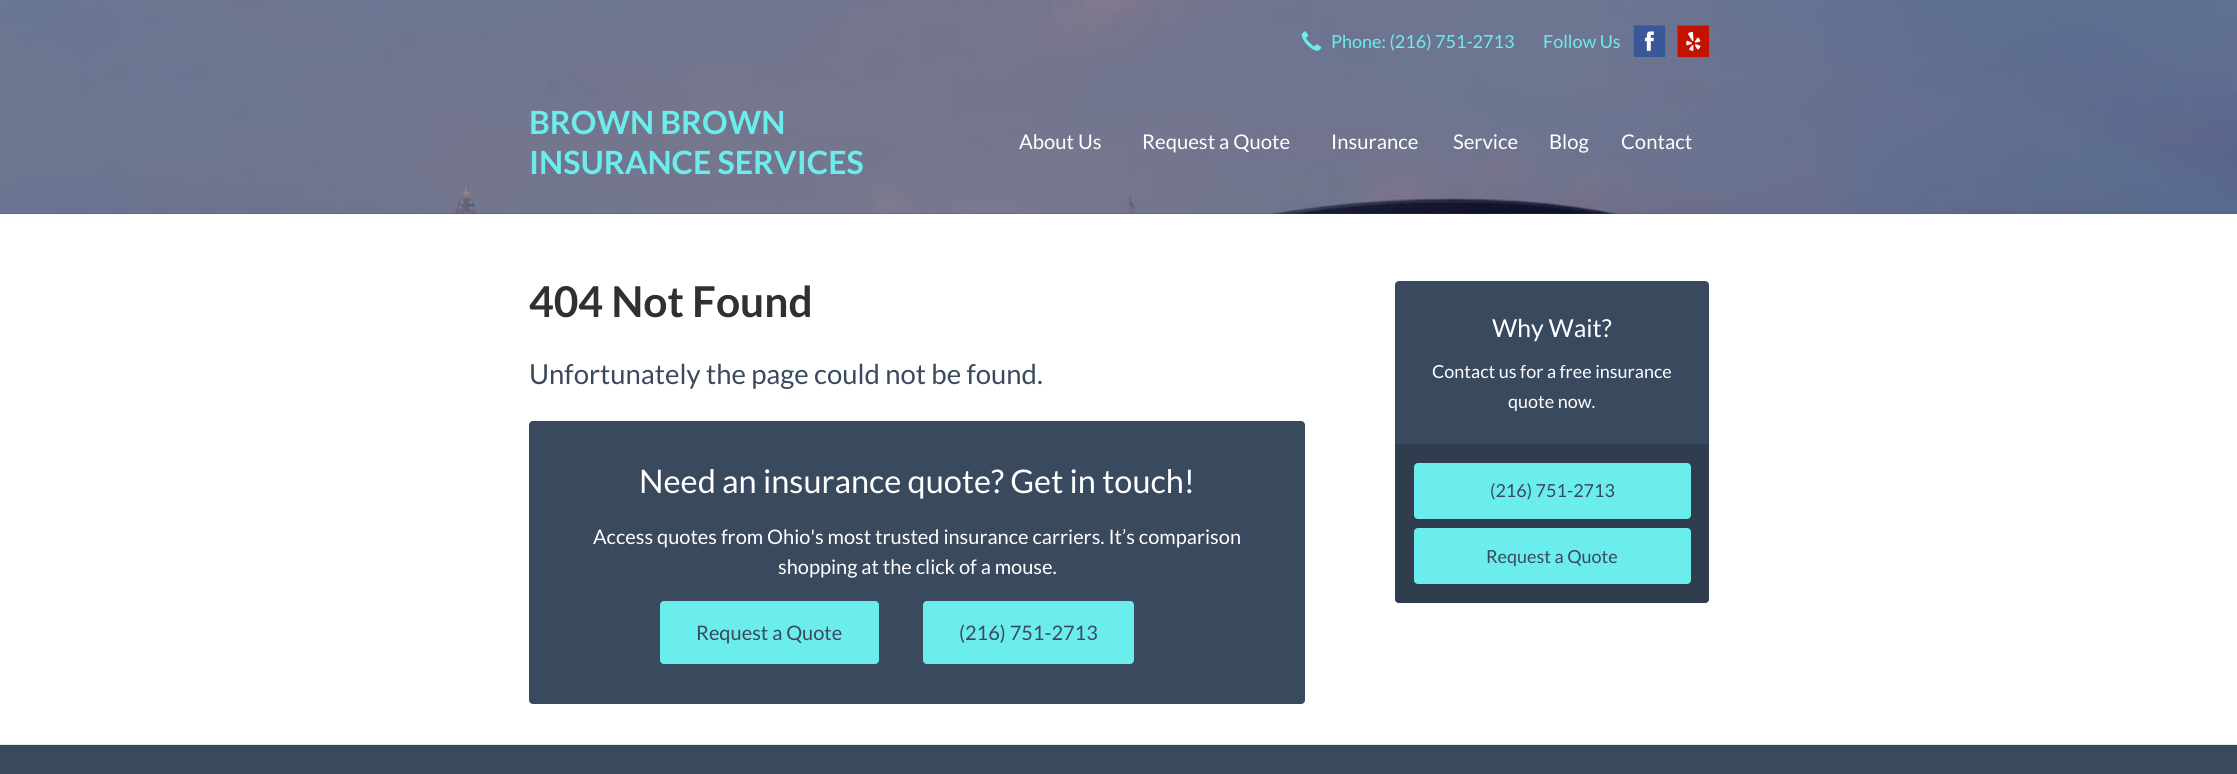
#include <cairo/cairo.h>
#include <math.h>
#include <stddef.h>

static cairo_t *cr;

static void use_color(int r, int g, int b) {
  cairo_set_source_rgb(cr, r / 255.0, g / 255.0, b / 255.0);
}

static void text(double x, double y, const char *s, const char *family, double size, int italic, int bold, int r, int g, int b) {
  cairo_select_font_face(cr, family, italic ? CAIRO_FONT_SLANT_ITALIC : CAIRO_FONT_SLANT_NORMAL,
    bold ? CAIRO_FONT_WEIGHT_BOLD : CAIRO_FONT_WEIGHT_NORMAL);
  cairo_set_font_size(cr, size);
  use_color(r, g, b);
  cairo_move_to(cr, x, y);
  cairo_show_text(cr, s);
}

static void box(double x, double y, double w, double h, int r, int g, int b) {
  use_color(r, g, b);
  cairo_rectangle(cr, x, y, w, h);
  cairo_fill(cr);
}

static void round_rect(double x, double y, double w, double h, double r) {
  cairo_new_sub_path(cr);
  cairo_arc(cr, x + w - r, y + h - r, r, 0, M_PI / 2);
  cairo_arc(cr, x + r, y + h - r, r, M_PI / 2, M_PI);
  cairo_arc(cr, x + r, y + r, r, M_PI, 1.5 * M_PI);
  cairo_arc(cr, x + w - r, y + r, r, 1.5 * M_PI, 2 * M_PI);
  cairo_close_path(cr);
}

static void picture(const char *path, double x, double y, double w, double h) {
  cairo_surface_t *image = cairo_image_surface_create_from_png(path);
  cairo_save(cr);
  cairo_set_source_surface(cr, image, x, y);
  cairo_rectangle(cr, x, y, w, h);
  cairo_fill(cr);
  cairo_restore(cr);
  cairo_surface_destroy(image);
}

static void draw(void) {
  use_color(57, 73, 94);
  cairo_paint(cr);
  picture("img_01.png", 0, 0, 2237, 214);
  picture("img_02.png", 1301, 31, 21, 20);
  box(1644, 31, 10, 20, 255, 255, 255);
  picture("img_03.png", 1633, 25, 33, 32);
  box(1686, 32, 15, 19, 255, 255, 255);
  picture("img_04.png", 1677, 25, 32, 32);
  box(0, 214, 2237, 530, 255, 255, 255);
  box(0, 744, 2237, 1, 230, 230, 230);
  use_color(57, 73, 94);
  round_rect(529, 421, 776, 283, 4);
  cairo_fill(cr);
  use_color(108, 237, 237);
  round_rect(660, 601, 219, 63, 4);
  cairo_fill(cr);
  round_rect(923, 601, 211, 63, 4);
  cairo_fill(cr);
  use_color(57, 73, 94);
  round_rect(1395, 281, 314, 322, 4);
  cairo_fill(cr);
  use_color(47, 61, 78);
  cairo_new_path(cr);
  cairo_move_to(cr, 1395, 444);
  cairo_line_to(cr, 1709, 444);
  cairo_line_to(cr, 1709, 599);
  cairo_curve_to(cr, 1709, 601, 1707, 603, 1705, 603);
  cairo_line_to(cr, 1399, 603);
  cairo_curve_to(cr, 1397, 603, 1395, 601, 1395, 599);
  cairo_close_path(cr);
  cairo_fill(cr);
  use_color(108, 237, 237);
  round_rect(1414, 463, 277, 56, 4);
  cairo_fill(cr);
  round_rect(1414, 528, 277, 56, 4);
  cairo_fill(cr);
  text(1331, 48, "Phone: (216) 751-2713", "Lato", 18, 0, 0, 108, 237, 237);
  text(1543, 48, "Follow Us", "Lato", 18, 0, 0, 108, 237, 237);
  text(529, 134, "BROWN BROWN", "Lato", 32, 0, 1, 108, 237, 237);
  text(529, 174, "INSURANCE SERVICES", "Lato", 32, 0, 1, 108, 237, 237);
  text(1019, 149, "About Us", "Lato", 20.25, 0, 0, 255, 255, 255);
  text(1142, 149, "Request a Quote", "Lato", 20.25, 0, 0, 255, 255, 255);
  text(1331, 149, "Insurance", "Lato", 20.25, 0, 0, 255, 255, 255);
  text(1453, 149, "Service", "Lato", 20.25, 0, 0, 255, 255, 255);
  text(1549, 149, "Blog", "Lato", 20.25, 0, 0, 255, 255, 255);
  text(1621, 149, "Contact", "Lato", 20.25, 0, 0, 255, 255, 255);
  text(529, 317, "404 Not Found", "Lato", 42.5, 0, 1, 48, 48, 48);
  text(529, 384, "Unfortunately the page could not be found.", "Lato", 27.5, 0, 0, 57, 73, 94);
  text(639, 493, "Need an insurance quote? Get in touch!", "Lato", 32.5, 0, 0, 255, 255, 255);
  text(593, 544, "Access quotes from Ohio's most trusted insurance carriers. It’s comparison", "Lato", 20, 0, 0, 255, 255, 255);
  text(778, 574, "shopping at the click of a mouse.", "Lato", 20, 0, 0, 255, 255, 255);
  text(696, 640, "Request a Quote", "Lato", 20, 0, 0, 57, 73, 94);
  text(959, 640, "(216) 751-2713", "Lato", 20, 0, 0, 57, 73, 94);
  text(1492, 337, "Why Wait?", "Lato", 24.75, 0, 0, 255, 255, 255);
  text(1432, 378, "Contact us for a free insurance", "Lato", 18, 0, 0, 255, 255, 255);
  text(1508, 408, "quote now.", "Lato", 18, 0, 0, 255, 255, 255);
  text(1490, 497, "(216) 751-2713", "Lato", 18, 0, 0, 57, 73, 94);
  text(1486, 563, "Request a Quote", "Lato", 18, 0, 0, 57, 73, 94);
}

int main(void) {
  cairo_surface_t *surface = cairo_image_surface_create(CAIRO_FORMAT_RGB24, 2237, 774);
  cr = cairo_create(surface);
  cairo_font_options_t *options = cairo_font_options_create();
  cairo_font_options_set_hint_metrics(options, CAIRO_HINT_METRICS_OFF);
  cairo_font_options_set_hint_style(options, CAIRO_HINT_STYLE_NONE);
  cairo_set_font_options(cr, options);
  cairo_set_miter_limit(cr, 4);
  draw();
  cairo_surface_write_to_png(surface, "out.png");
  cairo_font_options_destroy(options);
  cairo_destroy(cr);
  cairo_surface_destroy(surface);
  return 0;
}
